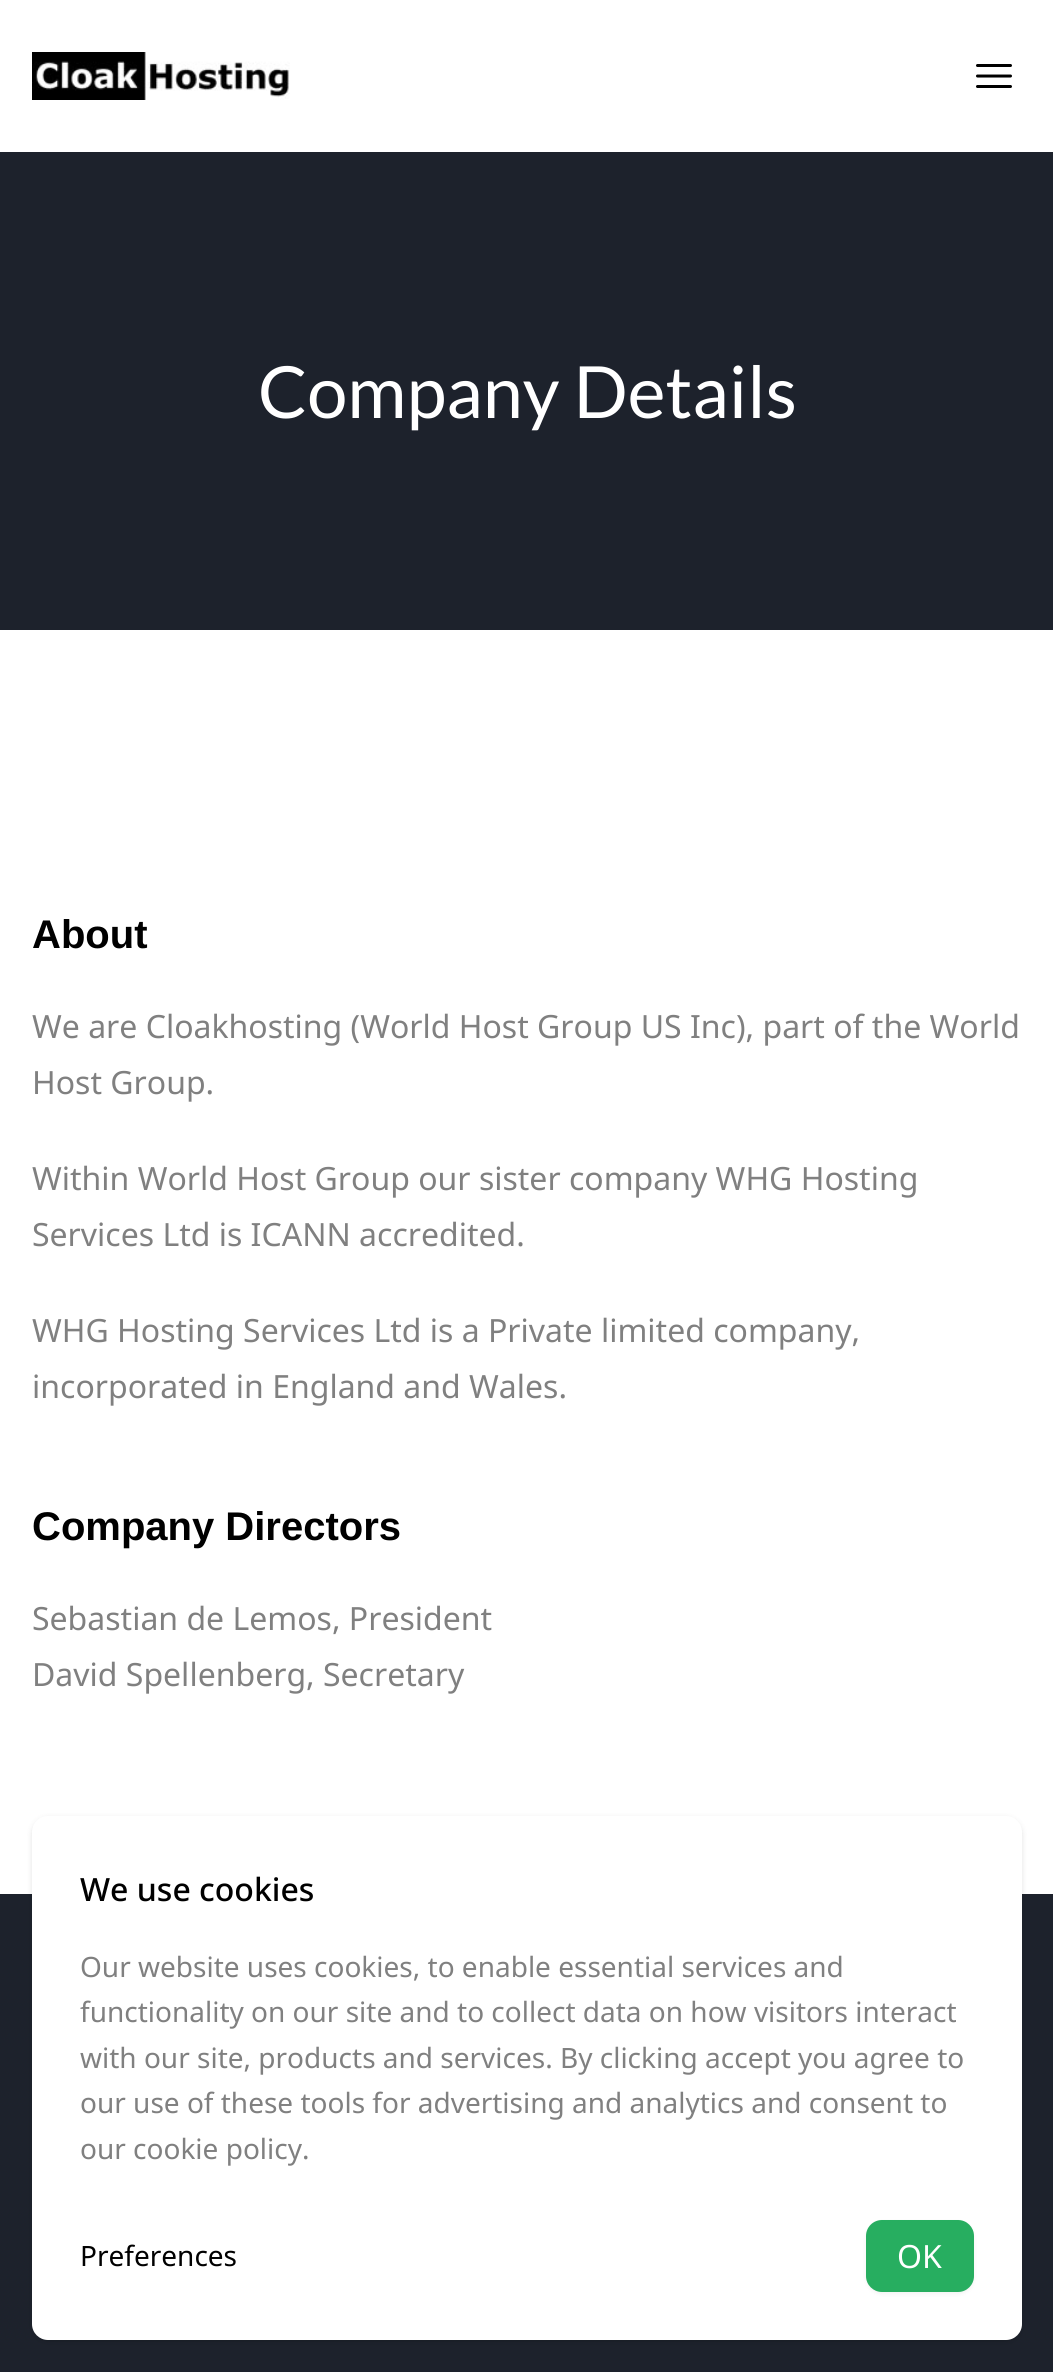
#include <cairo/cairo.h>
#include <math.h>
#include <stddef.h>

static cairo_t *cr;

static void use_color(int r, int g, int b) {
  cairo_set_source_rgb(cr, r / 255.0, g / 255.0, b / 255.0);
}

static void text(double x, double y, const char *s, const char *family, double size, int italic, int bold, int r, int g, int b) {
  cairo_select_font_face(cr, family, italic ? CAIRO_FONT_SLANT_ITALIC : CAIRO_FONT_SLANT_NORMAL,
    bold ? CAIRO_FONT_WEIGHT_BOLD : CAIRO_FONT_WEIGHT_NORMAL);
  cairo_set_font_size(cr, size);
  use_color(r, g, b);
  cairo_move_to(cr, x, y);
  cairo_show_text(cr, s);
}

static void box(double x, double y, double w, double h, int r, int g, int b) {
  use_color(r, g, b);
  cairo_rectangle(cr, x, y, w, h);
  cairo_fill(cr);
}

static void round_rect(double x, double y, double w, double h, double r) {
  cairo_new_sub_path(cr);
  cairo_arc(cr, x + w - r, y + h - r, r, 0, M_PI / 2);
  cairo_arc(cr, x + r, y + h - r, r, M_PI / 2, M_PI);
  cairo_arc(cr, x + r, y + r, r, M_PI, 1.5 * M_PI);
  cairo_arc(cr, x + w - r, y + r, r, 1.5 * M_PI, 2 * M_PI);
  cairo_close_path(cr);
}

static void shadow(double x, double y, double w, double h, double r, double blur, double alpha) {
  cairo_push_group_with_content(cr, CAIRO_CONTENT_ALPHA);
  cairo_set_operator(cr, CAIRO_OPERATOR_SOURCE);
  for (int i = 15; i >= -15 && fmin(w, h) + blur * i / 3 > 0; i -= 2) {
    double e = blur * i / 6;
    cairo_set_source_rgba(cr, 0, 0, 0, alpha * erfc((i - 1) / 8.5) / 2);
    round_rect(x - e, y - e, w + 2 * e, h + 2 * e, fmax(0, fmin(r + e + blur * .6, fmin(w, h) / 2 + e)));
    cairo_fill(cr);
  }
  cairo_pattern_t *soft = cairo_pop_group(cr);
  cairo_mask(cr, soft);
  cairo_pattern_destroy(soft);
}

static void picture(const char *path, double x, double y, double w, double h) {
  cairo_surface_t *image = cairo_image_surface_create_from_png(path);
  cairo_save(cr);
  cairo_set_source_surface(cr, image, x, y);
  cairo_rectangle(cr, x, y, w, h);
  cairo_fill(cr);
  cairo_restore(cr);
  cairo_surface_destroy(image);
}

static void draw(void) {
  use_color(255, 255, 255);
  cairo_paint(cr);
  picture("img_01.png", 32, 52, 258, 48);
  cairo_new_path(cr);
  cairo_move_to(cr, 977.5, 65.5);
  cairo_line_to(cr, 1010.5, 65.5);
  cairo_move_to(cr, 977.5, 76);
  cairo_line_to(cr, 1010.5, 76);
  cairo_move_to(cr, 977.5, 86.5);
  cairo_line_to(cr, 1010.5, 86.5);
  use_color(0, 0, 0);
  cairo_set_line_width(cr, 3);
  cairo_set_line_cap(cr, CAIRO_LINE_CAP_ROUND);
  cairo_set_line_join(cr, CAIRO_LINE_JOIN_ROUND);
  cairo_stroke(cr);
  box(0, 152, 1053, 478, 29, 34, 44);
  box(0, 1894, 1053, 478, 29, 34, 44);
  use_color(0, 0, 0);
  shadow(34, 1820, 986, 520, 14, 2, 0.1);
  shadow(32, 1818, 990, 524, 16, 3, 0.1);
  use_color(255, 255, 255);
  round_rect(32, 1816, 990, 524, 16);
  cairo_fill(cr);
  use_color(0, 0, 0);
  shadow(866, 2222, 108, 72, 16, 2, 0.05);
  use_color(39, 174, 96);
  round_rect(866, 2220, 108, 72, 16);
  cairo_fill(cr);
  text(258, 418, "Company Details", "Lato", 72, 0, 0, 255, 255, 255);
  text(32, 948, "About", "Liberation Sans", 40, 0, 1, 0, 0, 0);
  text(32, 1038, "We are Cloakhosting (World Host Group US Inc), part of the World", "Noto Sans", 32, 0, 0, 128, 128, 128);
  text(32, 1094, "Host Group.", "Noto Sans", 32, 0, 0, 128, 128, 128);
  text(32, 1190, "Within World Host Group our sister company WHG Hosting", "Noto Sans", 32, 0, 0, 128, 128, 128);
  text(32, 1246, "Services Ltd is ICANN accredited.", "Noto Sans", 32, 0, 0, 128, 128, 128);
  text(32, 1342, "WHG Hosting Services Ltd is a Private limited company,", "Noto Sans", 32, 0, 0, 128, 128, 128);
  text(32, 1398, "incorporated in England and Wales.", "Noto Sans", 32, 0, 0, 128, 128, 128);
  text(32, 1540, "Company Directors", "Liberation Sans", 40, 0, 1, 0, 0, 0);
  text(32, 1630, "Sebastian de Lemos, President", "Noto Sans", 32, 0, 0, 128, 128, 128);
  text(32, 1686, "David Spellenberg, Secretary", "Noto Sans", 32, 0, 0, 128, 128, 128);
  text(80, 1901, "We use cookies", "Noto Sans Medium", 32, 0, 0, 0, 0, 0);
  text(80, 1977, "Our website uses cookies, to enable essential services and", "Noto Sans", 28, 0, 0, 128, 128, 128);
  text(80, 2022, "functionality on our site and to collect data on how visitors interact", "Noto Sans", 28, 0, 0, 128, 128, 128);
  text(80, 2068, "with our site, products and services. By clicking accept you agree to", "Noto Sans", 28, 0, 0, 128, 128, 128);
  text(80, 2113, "our use of these tools for advertising and analytics and consent to", "Noto Sans", 28, 0, 0, 128, 128, 128);
  text(80, 2159, "our cookie policy.", "Noto Sans", 28, 0, 0, 128, 128, 128);
  text(80, 2266, "Preferences", "Noto Sans", 28, 0, 0, 0, 0, 0);
  text(897, 2268, "OK", "Noto Sans", 32, 0, 0, 255, 255, 255);
}

int main(void) {
  cairo_surface_t *surface = cairo_image_surface_create(CAIRO_FORMAT_RGB24, 1053, 2372);
  cr = cairo_create(surface);
  cairo_font_options_t *options = cairo_font_options_create();
  cairo_font_options_set_hint_metrics(options, CAIRO_HINT_METRICS_OFF);
  cairo_font_options_set_hint_style(options, CAIRO_HINT_STYLE_NONE);
  cairo_set_font_options(cr, options);
  cairo_set_miter_limit(cr, 4);
  draw();
  cairo_surface_write_to_png(surface, "out.png");
  cairo_font_options_destroy(options);
  cairo_destroy(cr);
  cairo_surface_destroy(surface);
  return 0;
}
